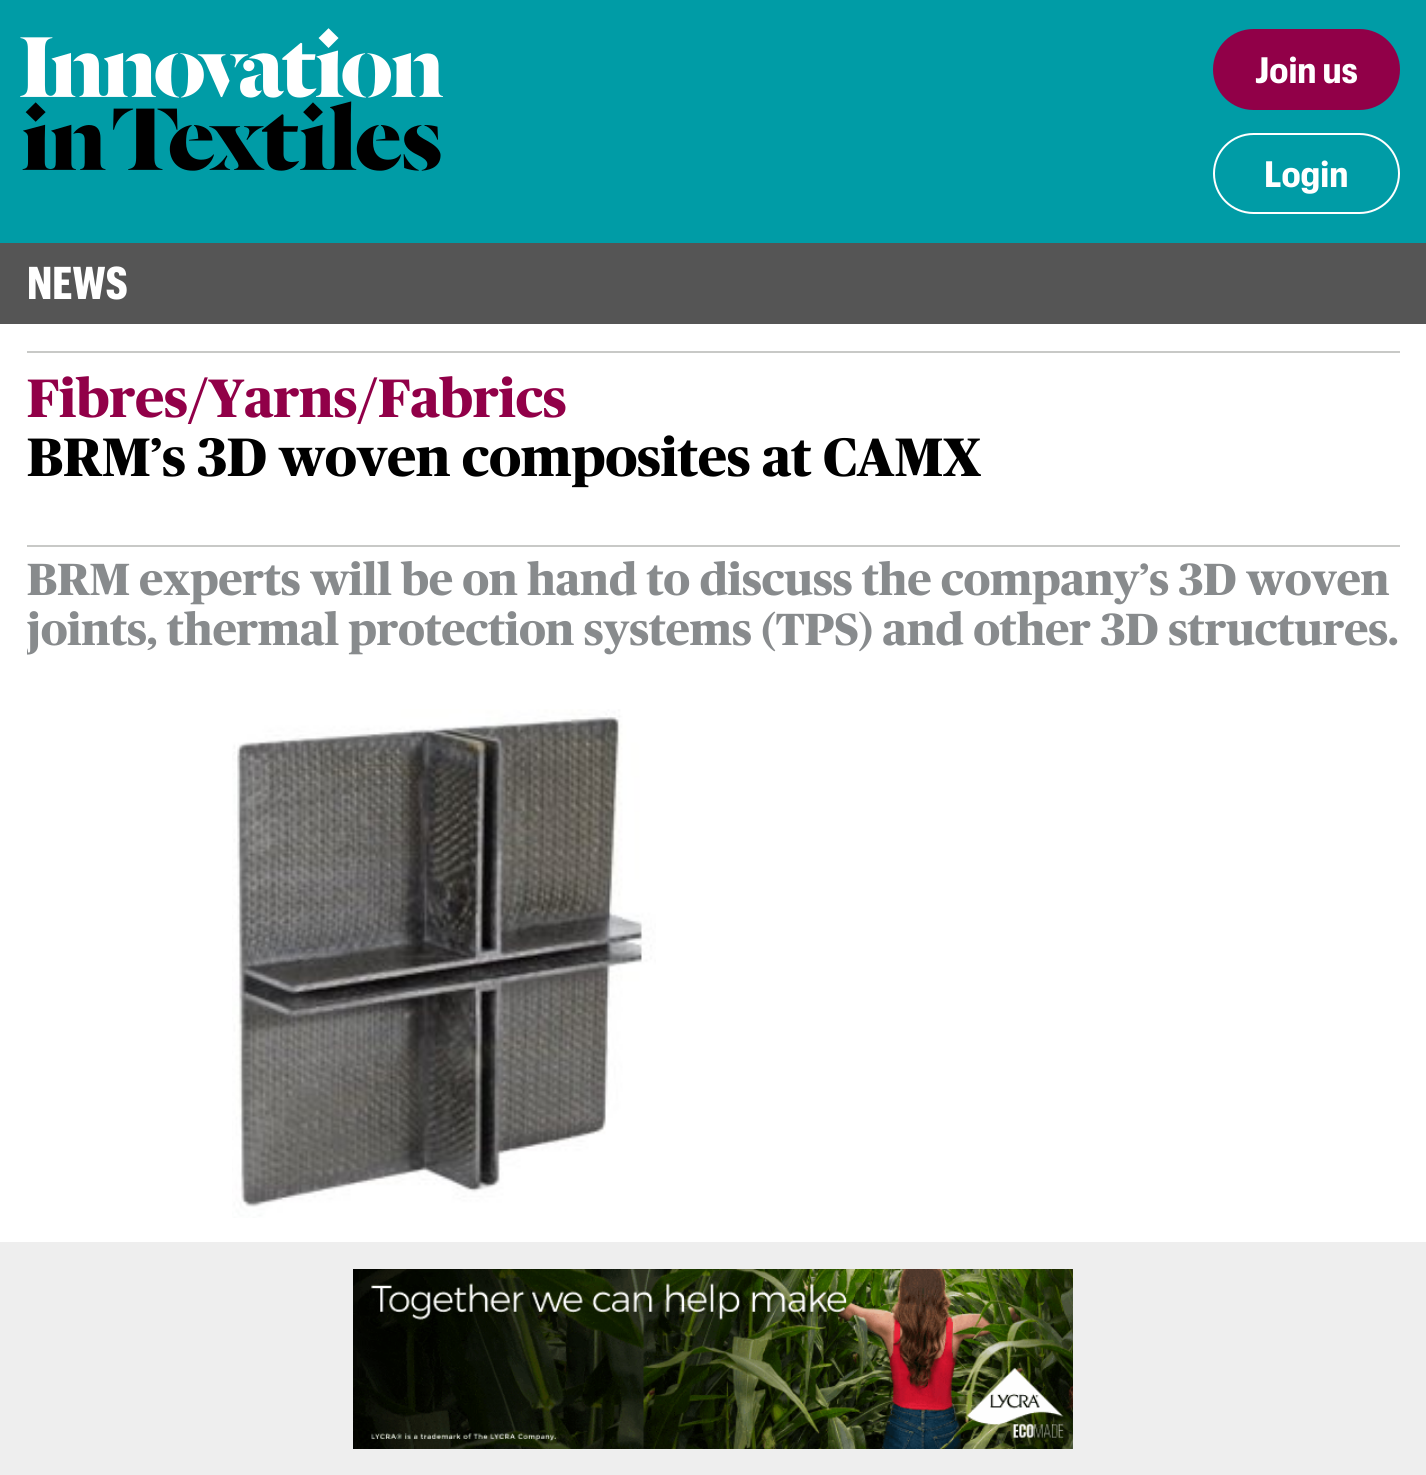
#include <cairo/cairo.h>
#include <math.h>
#include <stddef.h>

static cairo_t *cr;

static void use_color(int r, int g, int b) {
  cairo_set_source_rgb(cr, r / 255.0, g / 255.0, b / 255.0);
}

static void text(double x, double y, const char *s, const char *family, double size, int italic, int bold, int r, int g, int b) {
  cairo_select_font_face(cr, family, italic ? CAIRO_FONT_SLANT_ITALIC : CAIRO_FONT_SLANT_NORMAL,
    bold ? CAIRO_FONT_WEIGHT_BOLD : CAIRO_FONT_WEIGHT_NORMAL);
  cairo_set_font_size(cr, size);
  use_color(r, g, b);
  cairo_move_to(cr, x, y);
  cairo_show_text(cr, s);
}

static void box(double x, double y, double w, double h, int r, int g, int b) {
  use_color(r, g, b);
  cairo_rectangle(cr, x, y, w, h);
  cairo_fill(cr);
}

static void round_rect(double x, double y, double w, double h, double r) {
  cairo_new_sub_path(cr);
  cairo_arc(cr, x + w - r, y + h - r, r, 0, M_PI / 2);
  cairo_arc(cr, x + r, y + h - r, r, M_PI / 2, M_PI);
  cairo_arc(cr, x + r, y + r, r, M_PI, 1.5 * M_PI);
  cairo_arc(cr, x + w - r, y + r, r, 1.5 * M_PI, 2 * M_PI);
  cairo_close_path(cr);
}

static void picture(const char *path, double x, double y, double w, double h) {
  cairo_surface_t *image = cairo_image_surface_create_from_png(path);
  cairo_save(cr);
  cairo_set_source_surface(cr, image, x, y);
  cairo_rectangle(cr, x, y, w, h);
  cairo_fill(cr);
  cairo_restore(cr);
  cairo_surface_destroy(image);
}

static void draw(void) {
  use_color(255, 255, 255);
  cairo_paint(cr);
  box(0, 0, 1426, 243, 0, 156, 166);
  picture("img_01.png", 20, 28, 423, 143);
  use_color(145, 0, 72);
  round_rect(1214, 30, 185, 79, 39.5);
  cairo_fill_preserve(cr);
  cairo_stroke(cr);
  round_rect(1214, 134, 185, 79, 39.5);
  use_color(255, 255, 255);
  cairo_stroke(cr);
  box(0, 1242, 1426, 233, 238, 238, 238);
  picture("img_02.png", 353, 1269, 720, 180);
  box(0, 243, 1426, 81, 85, 85, 85);
  box(27, 351, 1373, 2, 200, 201, 199);
  box(27, 545, 1373, 2, 200, 201, 199);
  picture("img_03.png", 232, 709, 424, 509);
  text(1255, 83, "Join us", "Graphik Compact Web", 36, 0, 1, 255, 255, 255);
  text(1264, 187, "Login", "Graphik Compact Web", 36, 0, 1, 255, 255, 255);
  text(27, 299, "NEWS", "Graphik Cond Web", 45, 0, 1, 255, 255, 255);
  text(27, 417, "Fibres/Yarns/Fabrics", "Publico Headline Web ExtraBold", 54, 0, 0, 145, 0, 72);
  text(27, 476, "BRM’s 3D woven composites at CAMX", "Publico Headline Web ExtraBold", 54, 0, 0, 0, 0, 0);
  text(27, 595, "BRM experts will be on hand to discuss the company’s 3D woven", "Publico Headline Web ExtraBold", 45, 0, 0, 136, 139, 141);
  cairo_save(cr);
  cairo_rectangle(cr, 27, 558, 1373, 99);
  cairo_clip(cr);
  text(27, 645, "joints, thermal protection systems (TPS) and other 3D structures.", "Publico Headline Web ExtraBold", 45, 0, 0, 136, 139, 141);
  cairo_restore(cr);
}

int main(void) {
  cairo_surface_t *surface = cairo_image_surface_create(CAIRO_FORMAT_RGB24, 1426, 1475);
  cr = cairo_create(surface);
  cairo_font_options_t *options = cairo_font_options_create();
  cairo_font_options_set_hint_metrics(options, CAIRO_HINT_METRICS_OFF);
  cairo_font_options_set_hint_style(options, CAIRO_HINT_STYLE_NONE);
  cairo_set_font_options(cr, options);
  cairo_set_miter_limit(cr, 4);
  draw();
  cairo_surface_write_to_png(surface, "out.png");
  cairo_font_options_destroy(options);
  cairo_destroy(cr);
  cairo_surface_destroy(surface);
  return 0;
}
